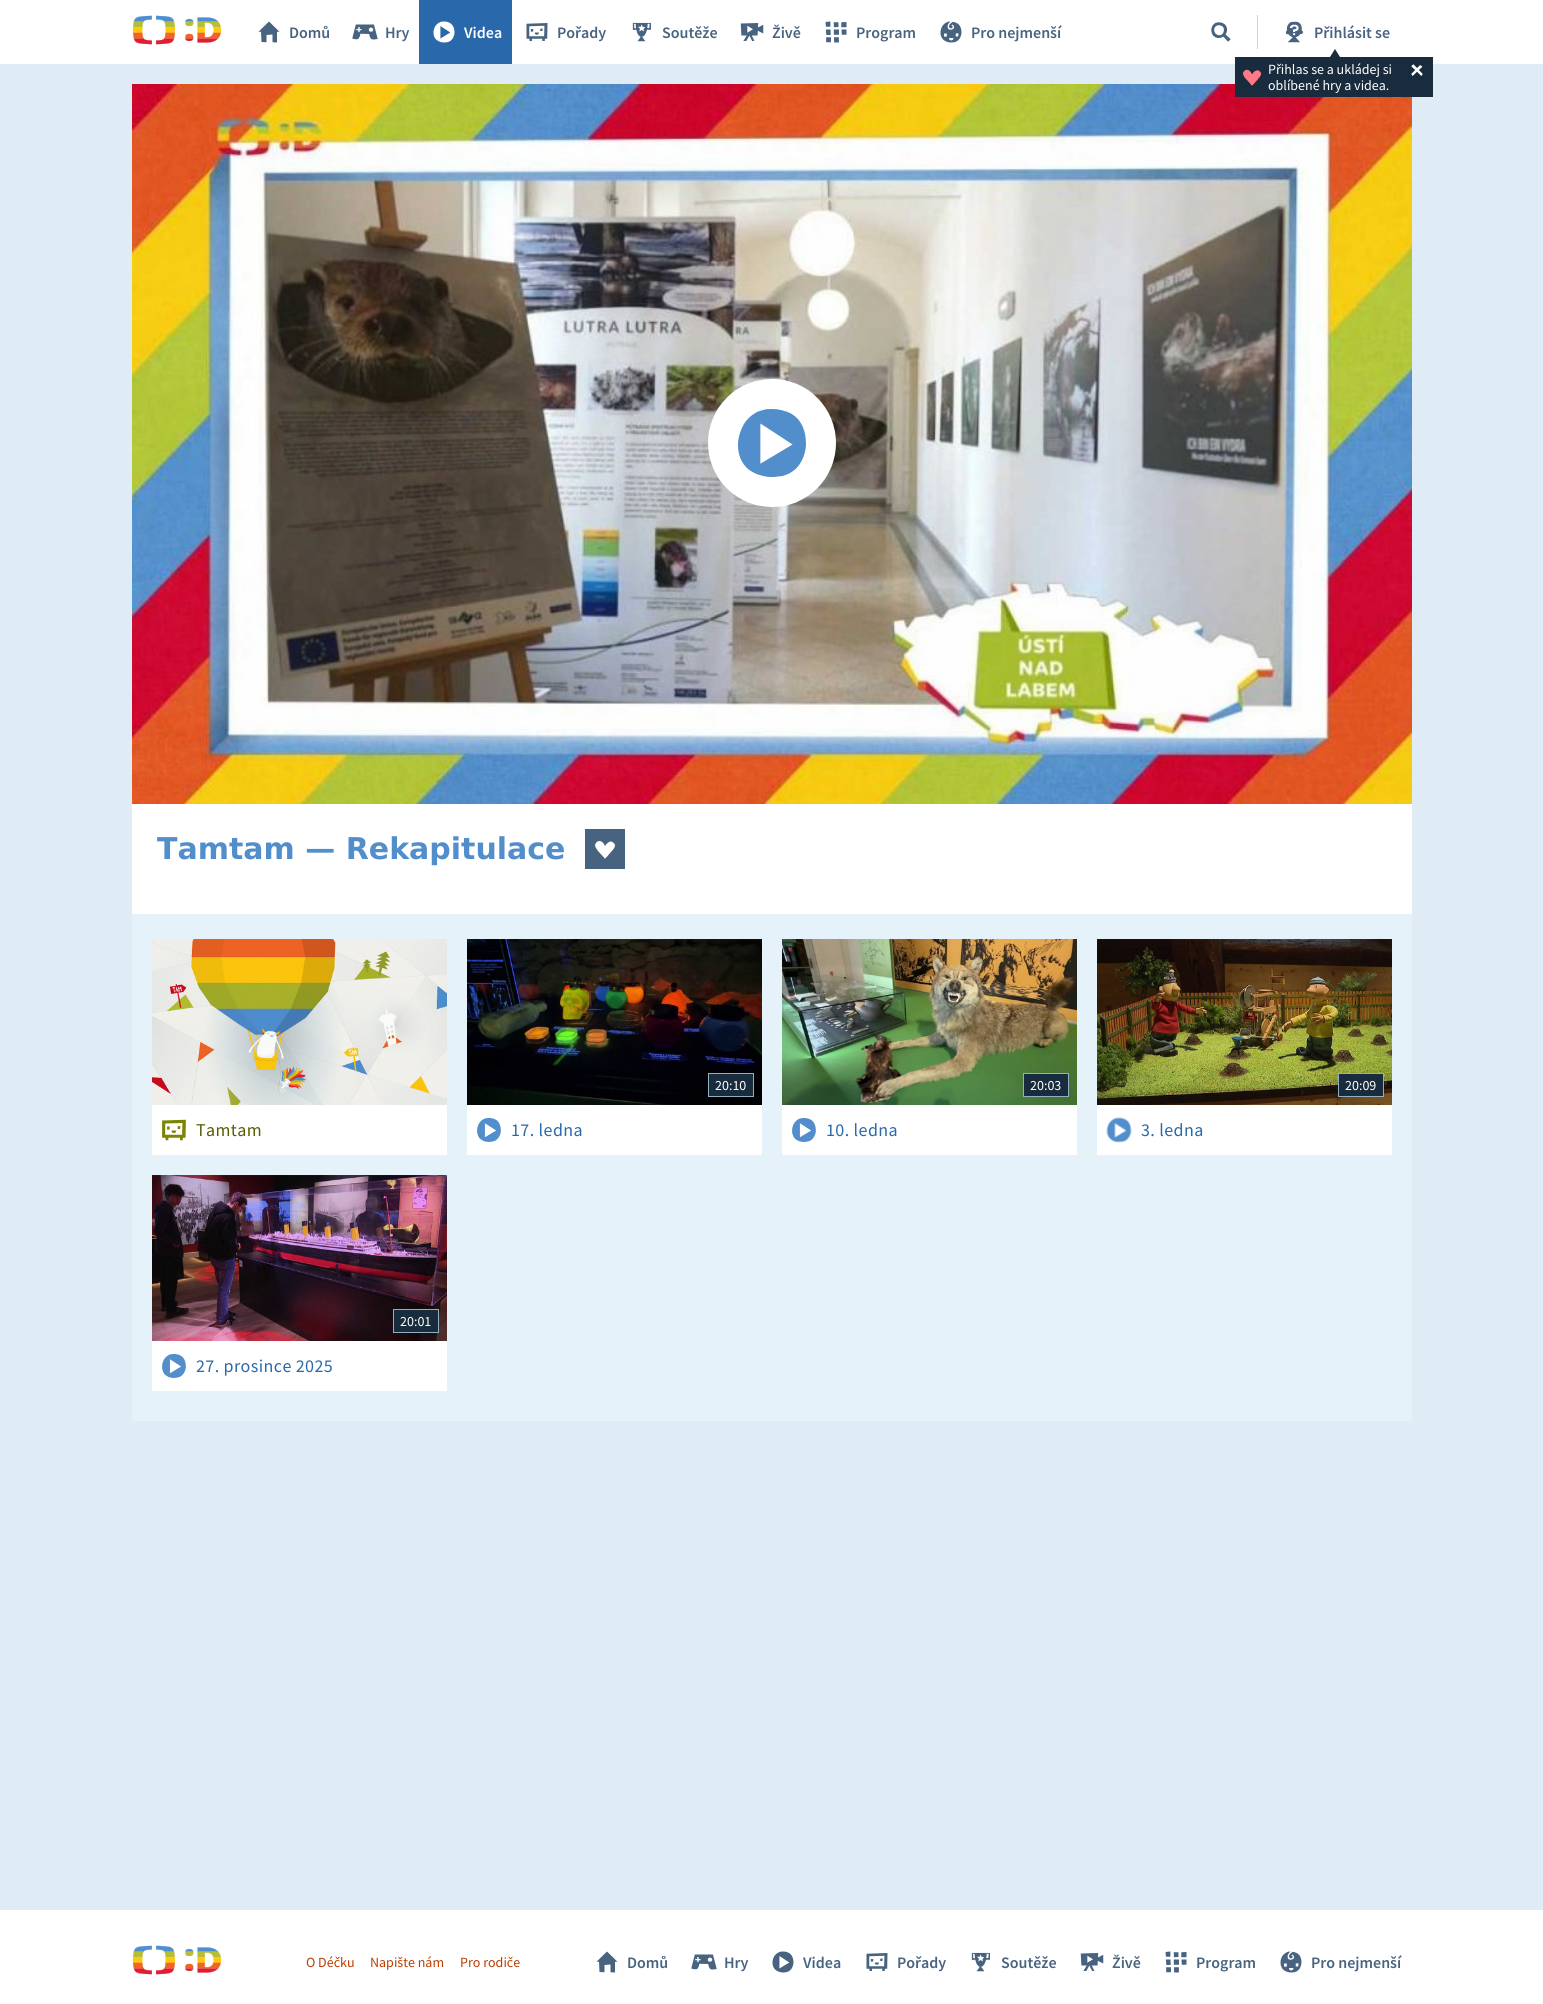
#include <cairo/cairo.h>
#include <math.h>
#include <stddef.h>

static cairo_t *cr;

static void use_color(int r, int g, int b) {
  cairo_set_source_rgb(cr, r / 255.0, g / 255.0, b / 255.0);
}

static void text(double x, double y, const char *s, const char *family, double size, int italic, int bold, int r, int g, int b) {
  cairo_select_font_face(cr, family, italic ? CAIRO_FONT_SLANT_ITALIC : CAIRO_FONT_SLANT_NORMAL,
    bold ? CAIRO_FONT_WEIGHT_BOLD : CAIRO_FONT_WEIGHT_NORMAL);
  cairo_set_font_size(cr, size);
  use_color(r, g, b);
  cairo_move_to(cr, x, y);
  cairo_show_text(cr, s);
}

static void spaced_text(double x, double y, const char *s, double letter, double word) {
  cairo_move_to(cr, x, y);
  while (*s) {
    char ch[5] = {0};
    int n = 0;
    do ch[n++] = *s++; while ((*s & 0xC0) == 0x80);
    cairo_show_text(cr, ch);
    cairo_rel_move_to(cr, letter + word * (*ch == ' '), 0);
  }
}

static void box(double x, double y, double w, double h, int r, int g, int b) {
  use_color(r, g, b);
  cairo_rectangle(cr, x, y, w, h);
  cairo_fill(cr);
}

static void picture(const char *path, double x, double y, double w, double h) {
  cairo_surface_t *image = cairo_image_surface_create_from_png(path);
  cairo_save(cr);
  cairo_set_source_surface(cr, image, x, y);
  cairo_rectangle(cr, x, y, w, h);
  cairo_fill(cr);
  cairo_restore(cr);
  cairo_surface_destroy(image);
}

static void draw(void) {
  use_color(224, 236, 245);
  cairo_paint(cr);
  box(0, 0, 1543, 64, 255, 255, 255);
  picture("img_01.png", 132, 15, 90, 30);
  picture("img_02.png", 258, 21, 22, 22);
  picture("img_03.png", 352, 24, 26, 16);
  box(419, 0, 93, 64, 41, 105, 171);
  picture("img_04.png", 433, 21, 22, 22);
  picture("img_05.png", 526, 23, 22, 18);
  picture("img_06.png", 632, 22, 19, 20);
  picture("img_07.png", 740, 23, 24, 18);
  picture("img_08.png", 825, 21, 22, 22);
  picture("img_09.png", 940, 21, 22, 22);
  picture("img_10.png", 1211, 22, 20, 20);
  box(1257, 15, 1, 34, 195, 215, 230);
  picture("img_11.png", 1285, 21, 18, 22);
  picture("img_14.png", 132, 84, 1280, 720);
  box(1235, 57, 198, 40, 25, 44, 61);
  cairo_new_path(cr);
  cairo_move_to(cr, 1340, 57);
  cairo_line_to(cr, 1330, 57);
  cairo_line_to(cr, 1335, 49);
  cairo_close_path(cr);
  cairo_fill(cr);
  picture("img_12.png", 1243, 69, 19, 17);
  picture("img_13.png", 1411, 64, 12, 12);
  picture("img_15.png", 708, 379, 128, 128);
  box(132, 804, 1280, 110, 255, 255, 255);
  box(585, 829, 40, 40, 72, 99, 128);
  picture("img_16.png", 595, 841, 20, 18);
  box(132, 914, 1280, 507, 230, 242, 250);
  picture("img_17.png", 152, 939, 295, 166);
  box(152, 1105, 295, 50, 255, 255, 255);
  picture("img_18.png", 162, 1119, 24, 22);
  picture("img_19.png", 467, 939, 295, 166);
  use_color(25, 44, 61);
  cairo_rectangle(cr, 708.5, 1073.5, 45, 23);
  cairo_fill_preserve(cr);
  use_color(145, 176, 196);
  cairo_set_line_width(cr, 1);
  cairo_stroke(cr);
  box(467, 1105, 295, 50, 255, 255, 255);
  picture("img_20.png", 477, 1118, 24, 24);
  picture("img_21.png", 782, 939, 295, 166);
  use_color(25, 44, 61);
  cairo_rectangle(cr, 1023.5, 1073.5, 45, 23);
  cairo_fill_preserve(cr);
  use_color(145, 176, 196);
  cairo_stroke(cr);
  box(782, 1105, 295, 50, 255, 255, 255);
  picture("img_20.png", 792, 1118, 24, 24);
  picture("img_22.png", 1097, 939, 295, 166);
  use_color(25, 44, 61);
  cairo_rectangle(cr, 1338.5, 1073.5, 45, 23);
  cairo_fill_preserve(cr);
  use_color(145, 176, 196);
  cairo_stroke(cr);
  box(1097, 1105, 295, 50, 255, 255, 255);
  picture("img_23.png", 1106, 1117, 26, 26);
  picture("img_24.png", 152, 1175, 295, 166);
  use_color(25, 44, 61);
  cairo_rectangle(cr, 393.5, 1309.5, 45, 23);
  cairo_fill_preserve(cr);
  use_color(145, 176, 196);
  cairo_stroke(cr);
  box(152, 1341, 295, 50, 255, 255, 255);
  picture("img_20.png", 162, 1354, 24, 24);
  box(0, 1910, 1543, 94, 255, 255, 255);
  picture("img_01.png", 132, 1945, 90, 30);
  picture("img_02.png", 596, 1951, 22, 22);
  picture("img_03.png", 691, 1954, 26, 16);
  picture("img_25.png", 772, 1951, 22, 22);
  picture("img_05.png", 866, 1953, 22, 18);
  picture("img_06.png", 971, 1952, 19, 20);
  picture("img_07.png", 1080, 1953, 24, 18);
  picture("img_08.png", 1165, 1951, 22, 22);
  picture("img_09.png", 1280, 1951, 22, 22);
  text(289, 38, "Domů", "Source Sans Pro SemiBold", 16, 0, 0, 72, 99, 128);
  text(385, 38, "Hry", "Source Sans Pro SemiBold", 16, 0, 0, 72, 99, 128);
  text(464, 38, "Videa", "Source Sans Pro SemiBold", 16, 0, 0, 255, 255, 255);
  text(557, 38, "Pořady", "Source Sans Pro SemiBold", 16, 0, 0, 72, 99, 128);
  text(662, 38, "Soutěže", "Source Sans Pro SemiBold", 16, 0, 0, 72, 99, 128);
  text(772, 38, "Živě", "Source Sans Pro SemiBold", 16, 0, 0, 72, 99, 128);
  text(856, 38, "Program", "Source Sans Pro SemiBold", 16, 0, 0, 72, 99, 128);
  text(971, 38, "Pro nejmenší", "Source Sans Pro SemiBold", 16, 0, 0, 72, 99, 128);
  text(1314, 38, "Přihlásit se", "Source Sans Pro SemiBold", 16, 0, 0, 72, 99, 128);
  text(1268, 74, "Přihlas se a ukládej si", "Source Sans Pro", 14, 0, 0, 255, 255, 255);
  text(1268, 90, "oblíbené hry a videa.", "Source Sans Pro", 14, 0, 0, 255, 255, 255);
  text(157, 859, "Tamtam — Rekapitulace", "DejaVu Sans", 30, 0, 1, 81, 142, 203);
  cairo_select_font_face(cr, "Source Sans Pro", CAIRO_FONT_SLANT_NORMAL, CAIRO_FONT_WEIGHT_NORMAL);
  cairo_set_font_size(cr, 18);
  use_color(87, 93, 0);
  spaced_text(196, 1136, "Tamtam", 0.4, 0);
  text(715, 1090, "20:10", "Source Sans Pro", 14, 0, 0, 255, 255, 255);
  cairo_set_font_size(cr, 18);
  use_color(41, 105, 171);
  spaced_text(511, 1136, "17. ledna", 0.4, 0);
  text(1030, 1090, "20:03", "Source Sans Pro", 14, 0, 0, 255, 255, 255);
  cairo_set_font_size(cr, 18);
  use_color(41, 105, 171);
  spaced_text(826, 1136, "10. ledna", 0.4, 0);
  text(1345, 1090, "20:09", "Source Sans Pro", 14, 0, 0, 255, 255, 255);
  cairo_set_font_size(cr, 18);
  use_color(41, 105, 171);
  spaced_text(1141, 1136, "3. ledna", 0.4, 0);
  text(400, 1326, "20:01", "Source Sans Pro", 14, 0, 0, 255, 255, 255);
  cairo_set_font_size(cr, 18);
  use_color(41, 105, 171);
  spaced_text(196, 1372, "27. prosince 2025", 0.4, 0);
  text(306, 1967, "O Déčku", "Source Sans Pro", 14, 0, 0, 189, 61, 0);
  text(370, 1967, "Napište nám", "Source Sans Pro", 14, 0, 0, 189, 61, 0);
  text(460, 1967, "Pro rodiče", "Source Sans Pro", 14, 0, 0, 189, 61, 0);
  text(627, 1968, "Domů", "Source Sans Pro SemiBold", 16, 0, 0, 72, 99, 128);
  text(724, 1968, "Hry", "Source Sans Pro SemiBold", 16, 0, 0, 72, 99, 128);
  text(803, 1968, "Videa", "Source Sans Pro SemiBold", 16, 0, 0, 72, 99, 128);
  text(897, 1968, "Pořady", "Source Sans Pro SemiBold", 16, 0, 0, 72, 99, 128);
  text(1001, 1968, "Soutěže", "Source Sans Pro SemiBold", 16, 0, 0, 72, 99, 128);
  text(1112, 1968, "Živě", "Source Sans Pro SemiBold", 16, 0, 0, 72, 99, 128);
  text(1196, 1968, "Program", "Source Sans Pro SemiBold", 16, 0, 0, 72, 99, 128);
  text(1311, 1968, "Pro nejmenší", "Source Sans Pro SemiBold", 16, 0, 0, 72, 99, 128);
}

int main(void) {
  cairo_surface_t *surface = cairo_image_surface_create(CAIRO_FORMAT_RGB24, 1543, 2004);
  cr = cairo_create(surface);
  cairo_font_options_t *options = cairo_font_options_create();
  cairo_font_options_set_hint_metrics(options, CAIRO_HINT_METRICS_OFF);
  cairo_font_options_set_hint_style(options, CAIRO_HINT_STYLE_NONE);
  cairo_set_font_options(cr, options);
  cairo_set_miter_limit(cr, 4);
  draw();
  cairo_surface_write_to_png(surface, "out.png");
  cairo_font_options_destroy(options);
  cairo_destroy(cr);
  cairo_surface_destroy(surface);
  return 0;
}
